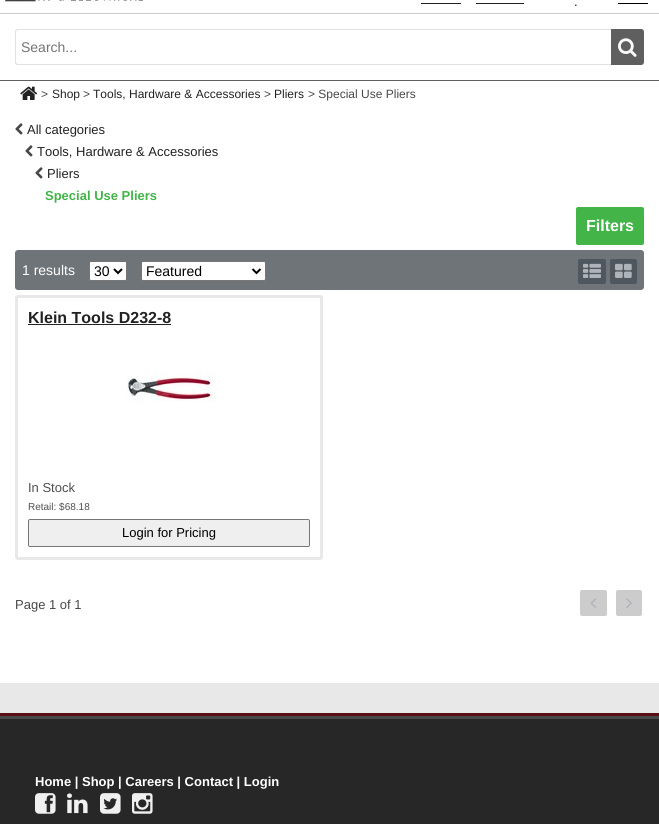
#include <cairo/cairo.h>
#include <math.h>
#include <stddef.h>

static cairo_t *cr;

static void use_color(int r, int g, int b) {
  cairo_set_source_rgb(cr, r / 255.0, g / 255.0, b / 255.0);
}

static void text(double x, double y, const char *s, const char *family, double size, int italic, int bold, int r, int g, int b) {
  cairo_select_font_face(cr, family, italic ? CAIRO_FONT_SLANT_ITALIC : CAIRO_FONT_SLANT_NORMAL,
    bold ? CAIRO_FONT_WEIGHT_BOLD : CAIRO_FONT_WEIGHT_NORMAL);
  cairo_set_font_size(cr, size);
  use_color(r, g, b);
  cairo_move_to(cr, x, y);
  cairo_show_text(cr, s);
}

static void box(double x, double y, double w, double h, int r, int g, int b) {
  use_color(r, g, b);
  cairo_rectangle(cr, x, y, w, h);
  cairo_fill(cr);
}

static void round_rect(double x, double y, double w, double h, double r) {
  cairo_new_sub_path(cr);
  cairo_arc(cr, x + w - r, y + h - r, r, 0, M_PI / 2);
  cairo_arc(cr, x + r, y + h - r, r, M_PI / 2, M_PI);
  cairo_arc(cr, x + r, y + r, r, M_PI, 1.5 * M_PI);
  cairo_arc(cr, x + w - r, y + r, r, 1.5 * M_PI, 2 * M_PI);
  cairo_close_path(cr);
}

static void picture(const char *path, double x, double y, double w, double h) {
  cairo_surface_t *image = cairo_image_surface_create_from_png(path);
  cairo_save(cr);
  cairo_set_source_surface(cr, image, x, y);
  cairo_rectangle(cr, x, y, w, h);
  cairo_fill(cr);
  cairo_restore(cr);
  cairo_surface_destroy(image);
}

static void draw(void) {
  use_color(255, 255, 255);
  cairo_paint(cr);
  box(0, 13, 659, 1, 204, 204, 204);
  picture("img_01.png", 5, 0, 138, 2);
  box(421, 3, 40, 1, 34, 34, 34);
  box(476, 3, 48, 1, 34, 34, 34);
  box(618, 3, 30, 1, 0, 0, 0);
  use_color(225, 225, 225);
  cairo_set_fill_rule(cr, CAIRO_FILL_RULE_EVEN_ODD);
  cairo_new_path(cr);
  cairo_move_to(cr, 18, 29);
  cairo_line_to(cr, 611, 29);
  cairo_line_to(cr, 611, 65);
  cairo_line_to(cr, 18, 65);
  cairo_curve_to(cr, 16, 65, 15, 64, 15, 62);
  cairo_line_to(cr, 15, 32);
  cairo_curve_to(cr, 15, 30, 16, 29, 18, 29);
  cairo_close_path(cr);
  cairo_move_to(cr, 18, 30);
  cairo_line_to(cr, 611, 30);
  cairo_line_to(cr, 611, 64);
  cairo_line_to(cr, 18, 64);
  cairo_curve_to(cr, 17, 64, 16, 63, 16, 62);
  cairo_line_to(cr, 16, 32);
  cairo_curve_to(cr, 16, 31, 17, 30, 18, 30);
  cairo_close_path(cr);
  cairo_fill(cr);
  use_color(95, 95, 95);
  cairo_new_path(cr);
  cairo_move_to(cr, 611.5, 29.5);
  cairo_line_to(cr, 641, 29.5);
  cairo_curve_to(cr, 642.5, 29.5, 643.5, 30.5, 643.5, 32);
  cairo_line_to(cr, 643.5, 62);
  cairo_curve_to(cr, 643.5, 63.5, 642.5, 64.5, 641, 64.5);
  cairo_line_to(cr, 611.5, 64.5);
  cairo_close_path(cr);
  cairo_fill_preserve(cr);
  cairo_set_line_width(cr, 1);
  cairo_stroke(cr);
  picture("img_02.png", 618, 38, 19, 19);
  box(0, 80, 659, 1, 95, 95, 95);
  picture("img_03.png", 20, 86, 17, 14);
  picture("img_04.png", 15, 123, 8, 12);
  picture("img_04.png", 25, 145, 8, 12);
  picture("img_04.png", 35, 167, 8, 12);
  use_color(66, 180, 72);
  round_rect(576, 207, 68, 38, 2);
  cairo_fill(cr);
  use_color(111, 116, 120);
  round_rect(16, 251, 627, 38, 2);
  cairo_fill_preserve(cr);
  cairo_set_line_width(cr, 2);
  cairo_stroke(cr);
  use_color(255, 255, 255);
  round_rect(89.5, 261.5, 37, 19, 1.5);
  cairo_fill_preserve(cr);
  use_color(118, 118, 118);
  cairo_set_line_width(cr, 1);
  cairo_stroke(cr);
  cairo_new_path(cr);
  cairo_move_to(cr, 114, 269);
  cairo_line_to(cr, 118, 273);
  cairo_line_to(cr, 122, 269);
  use_color(0, 0, 0);
  cairo_set_line_width(cr, 2);
  cairo_stroke(cr);
  use_color(255, 255, 255);
  round_rect(141.5, 261.5, 124, 19, 1.5);
  cairo_fill_preserve(cr);
  use_color(118, 118, 118);
  cairo_set_line_width(cr, 1);
  cairo_stroke(cr);
  cairo_new_path(cr);
  cairo_move_to(cr, 252.5, 269);
  cairo_line_to(cr, 256.5, 273);
  cairo_line_to(cr, 260.5, 269);
  use_color(0, 0, 0);
  cairo_set_line_width(cr, 2);
  cairo_stroke(cr);
  use_color(78, 86, 96);
  round_rect(578, 259, 28, 25, 2);
  cairo_fill(cr);
  picture("img_05.png", 583, 263, 18, 15);
  round_rect(610, 259, 27, 25, 2);
  cairo_fill(cr);
  picture("img_06.png", 615, 263, 17, 15);
  round_rect(16.5, 296.5, 305, 262, 1.5);
  use_color(232, 232, 232);
  cairo_set_line_width(cr, 3);
  cairo_stroke(cr);
  box(28, 324, 143, 1, 34, 34, 34);
  picture("img_07.png", 127, 370, 88, 32);
  use_color(239, 239, 239);
  round_rect(28.5, 519.5, 281, 27, 1.5);
  cairo_fill_preserve(cr);
  use_color(118, 118, 118);
  cairo_set_line_width(cr, 1);
  cairo_stroke(cr);
  use_color(204, 204, 204);
  round_rect(580, 590, 27, 26, 2);
  cairo_fill(cr);
  picture("img_08.png", 590, 598, 7, 10);
  round_rect(616, 590, 26, 26, 2);
  cairo_fill(cr);
  picture("img_09.png", 626, 598, 6, 10);
  box(0, 683, 659, 30, 232, 232, 232);
  box(0, 716, 659, 3, 72, 72, 72);
  box(0, 713, 659, 3, 89, 16, 21);
  box(0, 719, 659, 105, 39, 39, 39);
  picture("img_10.png", 35, 793, 21, 21);
  picture("img_11.png", 67, 793, 21, 21);
  picture("img_12.png", 100, 793, 21, 21);
  picture("img_13.png", 132, 793, 21, 21);
  text(574, 6, ".", "Liberation Sans", 13, 0, 0, 34, 34, 34);
  text(21, 52, "Search...", "Liberation Sans", 14, 0, 0, 117, 117, 117);
  text(41, 98, ">", "Liberation Sans", 12, 0, 0, 72, 72, 72);
  text(52, 98, "Shop", "Liberation Sans", 12, 0, 0, 34, 34, 34);
  text(83, 98, ">", "Liberation Sans", 12, 0, 0, 72, 72, 72);
  text(93, 98, "Tools, Hardware & Accessories", "Liberation Sans", 12, 0, 0, 34, 34, 34);
  text(264, 98, ">", "Liberation Sans", 12, 0, 0, 72, 72, 72);
  text(274, 98, "Pliers", "Liberation Sans", 12, 0, 0, 34, 34, 34);
  text(308, 98, "> Special Use Pliers", "Liberation Sans", 12, 0, 0, 72, 72, 72);
  text(27, 134, "All categories", "Liberation Sans", 13, 0, 0, 34, 34, 34);
  text(37, 156, "Tools, Hardware & Accessories", "Liberation Sans", 13, 0, 0, 34, 34, 34);
  text(47, 178, "Pliers", "Liberation Sans", 13, 0, 0, 34, 34, 34);
  text(45, 200, "Special Use Pliers", "Liberation Sans", 13, 0, 1, 66, 180, 72);
  text(586, 231, "Filters", "Liberation Sans", 16, 0, 1, 255, 255, 255);
  text(22, 275, "1 results", "Liberation Sans", 14, 0, 0, 255, 255, 255);
  text(94, 276, "30", "Liberation Sans", 14, 0, 0, 0, 0, 0);
  text(146, 276, "Featured", "Liberation Sans", 14, 0, 0, 0, 0, 0);
  text(28, 323, "Klein Tools D232-8", "Liberation Sans", 16, 0, 1, 34, 34, 34);
  text(28, 492, "In Stock", "Liberation Sans", 13, 0, 0, 78, 78, 78);
  text(28, 510, "Retail: $68.18", "Liberation Sans", 10, 0, 0, 78, 78, 78);
  text(122, 537, "Login for Pricing", "Liberation Sans", 13, 0, 0, 0, 0, 0);
  text(15, 609, "Page 1 of 1", "Liberation Sans", 13, 0, 0, 72, 72, 72);
  text(35, 786, "Home | Shop | Careers | Contact | Login", "Liberation Sans", 13, 0, 1, 255, 255, 255);
}

int main(void) {
  cairo_surface_t *surface = cairo_image_surface_create(CAIRO_FORMAT_RGB24, 659, 824);
  cr = cairo_create(surface);
  cairo_font_options_t *options = cairo_font_options_create();
  cairo_font_options_set_hint_metrics(options, CAIRO_HINT_METRICS_OFF);
  cairo_font_options_set_hint_style(options, CAIRO_HINT_STYLE_NONE);
  cairo_set_font_options(cr, options);
  cairo_set_miter_limit(cr, 4);
  draw();
  cairo_surface_write_to_png(surface, "out.png");
  cairo_font_options_destroy(options);
  cairo_destroy(cr);
  cairo_surface_destroy(surface);
  return 0;
}
